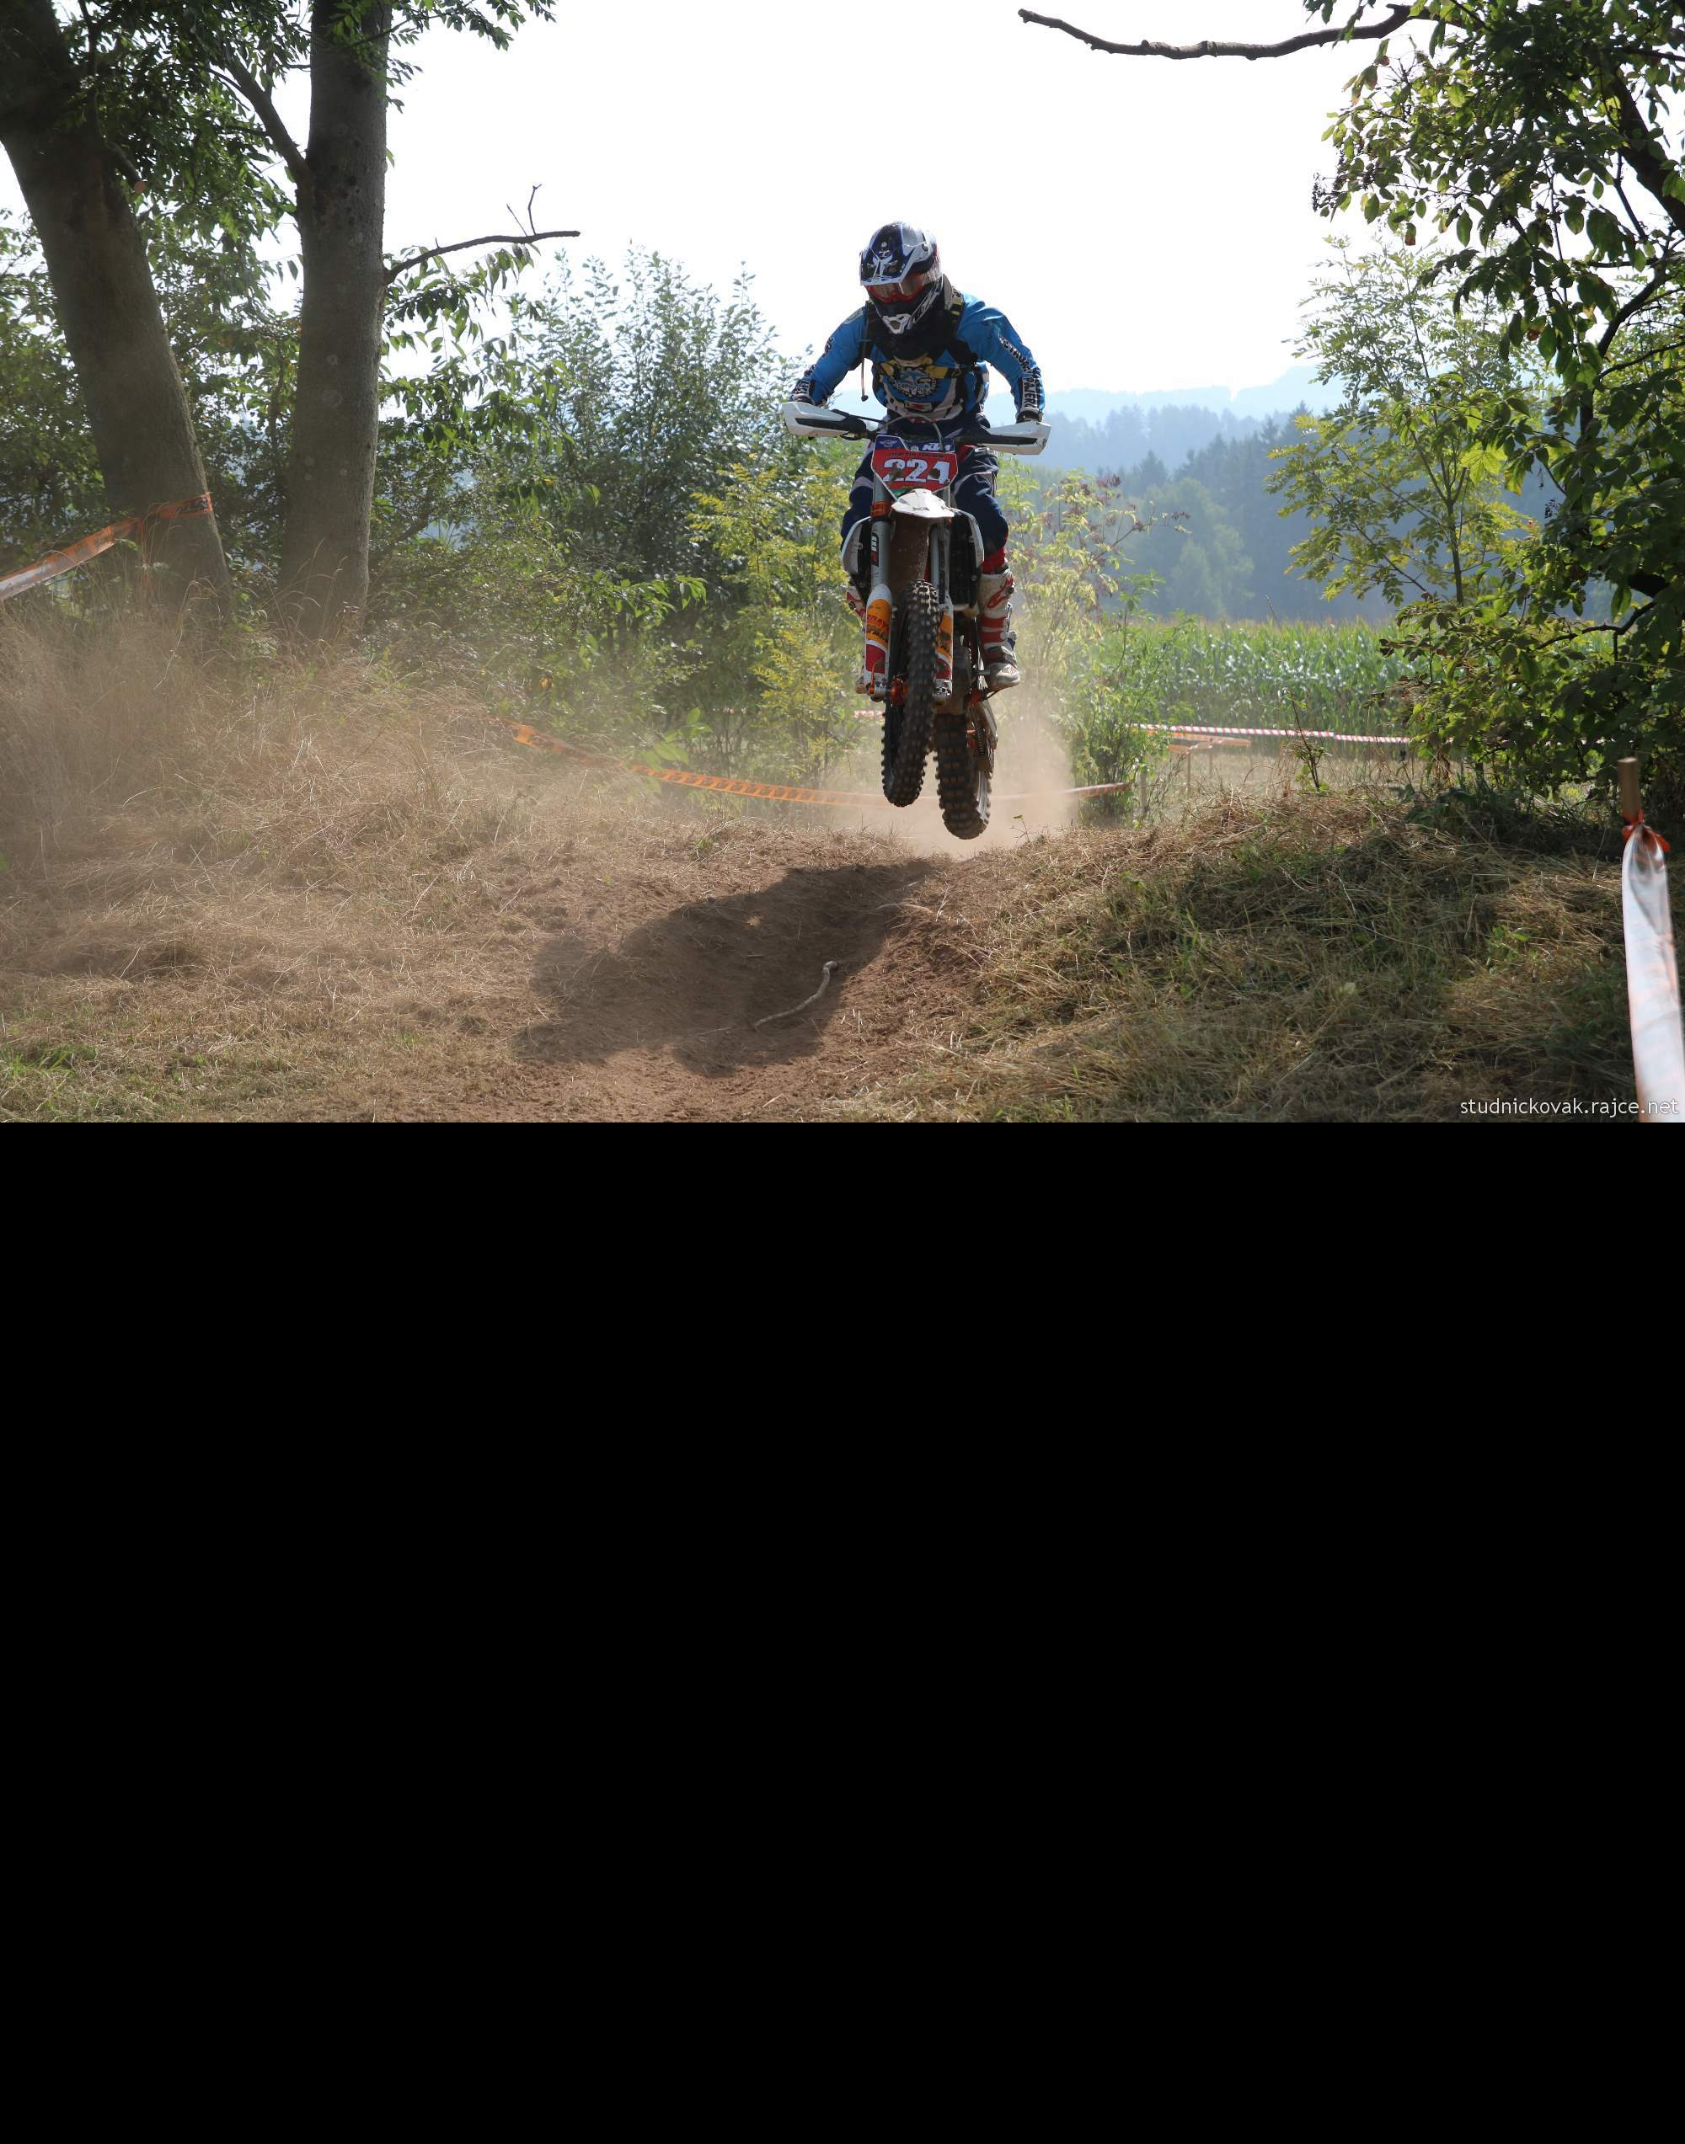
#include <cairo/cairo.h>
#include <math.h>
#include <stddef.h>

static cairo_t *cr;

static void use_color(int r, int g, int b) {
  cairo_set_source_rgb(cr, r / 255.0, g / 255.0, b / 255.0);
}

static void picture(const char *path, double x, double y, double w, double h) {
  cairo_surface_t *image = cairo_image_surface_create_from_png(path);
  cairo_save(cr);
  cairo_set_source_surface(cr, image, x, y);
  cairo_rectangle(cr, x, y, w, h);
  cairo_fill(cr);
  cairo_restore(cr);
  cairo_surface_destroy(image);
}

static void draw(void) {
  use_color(0, 0, 0);
  cairo_paint(cr);
  picture("img_01.png", 0, 0, 1685, 1123);
}

int main(void) {
  cairo_surface_t *surface = cairo_image_surface_create(CAIRO_FORMAT_RGB24, 1685, 2144);
  cr = cairo_create(surface);
  cairo_font_options_t *options = cairo_font_options_create();
  cairo_font_options_set_hint_metrics(options, CAIRO_HINT_METRICS_OFF);
  cairo_font_options_set_hint_style(options, CAIRO_HINT_STYLE_NONE);
  cairo_set_font_options(cr, options);
  cairo_set_miter_limit(cr, 4);
  draw();
  cairo_surface_write_to_png(surface, "out.png");
  cairo_font_options_destroy(options);
  cairo_destroy(cr);
  cairo_surface_destroy(surface);
  return 0;
}
